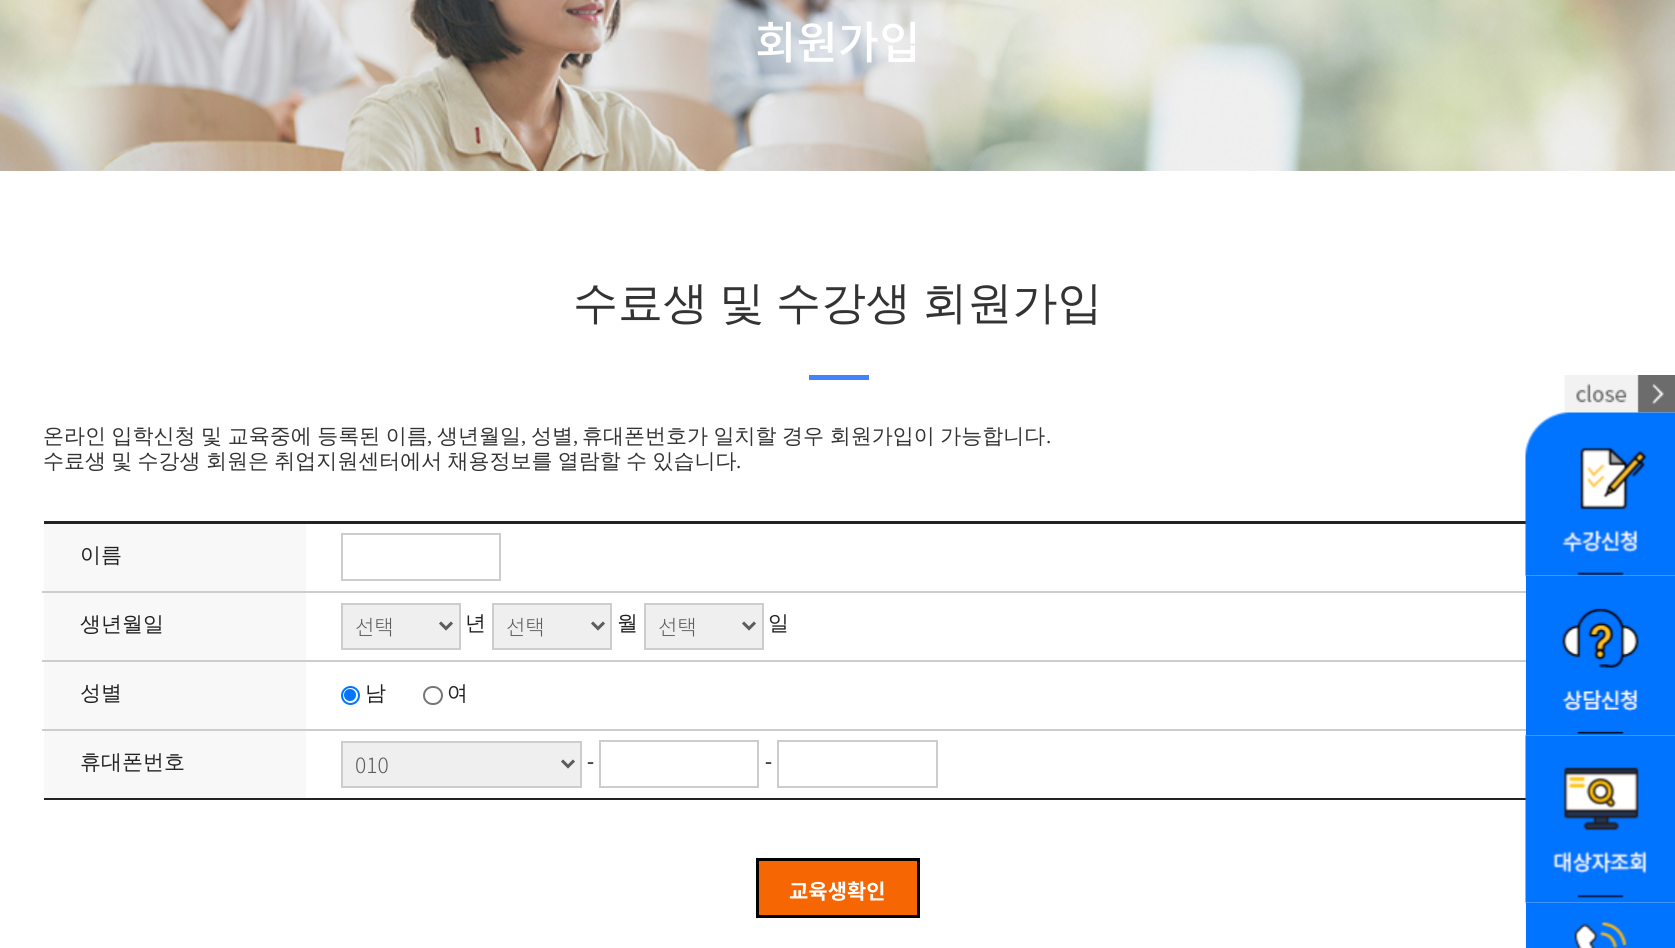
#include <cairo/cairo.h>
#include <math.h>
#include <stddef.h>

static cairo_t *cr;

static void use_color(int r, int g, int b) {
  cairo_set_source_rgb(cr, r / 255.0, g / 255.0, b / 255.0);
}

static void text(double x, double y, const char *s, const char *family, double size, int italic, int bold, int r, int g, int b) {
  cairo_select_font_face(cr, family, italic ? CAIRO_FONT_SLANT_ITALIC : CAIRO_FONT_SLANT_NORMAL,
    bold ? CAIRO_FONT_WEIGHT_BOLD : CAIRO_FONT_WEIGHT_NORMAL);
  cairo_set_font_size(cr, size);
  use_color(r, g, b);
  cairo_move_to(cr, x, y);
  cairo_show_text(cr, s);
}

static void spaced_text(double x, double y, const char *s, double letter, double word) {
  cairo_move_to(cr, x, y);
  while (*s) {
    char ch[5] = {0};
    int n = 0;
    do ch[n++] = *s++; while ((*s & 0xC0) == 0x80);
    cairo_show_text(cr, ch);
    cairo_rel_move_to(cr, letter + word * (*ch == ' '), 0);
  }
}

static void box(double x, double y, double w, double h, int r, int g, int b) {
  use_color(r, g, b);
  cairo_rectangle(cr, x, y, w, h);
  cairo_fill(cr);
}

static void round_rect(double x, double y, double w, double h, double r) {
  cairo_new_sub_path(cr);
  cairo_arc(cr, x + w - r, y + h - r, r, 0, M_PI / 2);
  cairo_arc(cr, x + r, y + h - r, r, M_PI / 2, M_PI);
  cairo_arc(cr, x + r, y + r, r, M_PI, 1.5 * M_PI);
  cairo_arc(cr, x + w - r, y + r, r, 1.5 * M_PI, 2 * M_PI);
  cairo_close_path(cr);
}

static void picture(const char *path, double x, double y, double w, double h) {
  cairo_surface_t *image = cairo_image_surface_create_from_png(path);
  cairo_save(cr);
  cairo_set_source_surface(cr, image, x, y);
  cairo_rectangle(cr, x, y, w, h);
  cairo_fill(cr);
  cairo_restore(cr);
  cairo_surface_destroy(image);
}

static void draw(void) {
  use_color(255, 255, 255);
  cairo_paint(cr);
  picture("img_01.png", 0, 0, 1675, 171);
  box(809, 375, 60, 5, 68, 129, 252);
  box(44, 798, 1482, 2, 33, 35, 37);
  box(44, 521, 1482, 3, 33, 35, 37);
  box(42, 591, 1484, 2, 205, 205, 205);
  cairo_rectangle(cr, 342, 534, 158, 46);
  cairo_stroke(cr);
  box(44, 524, 262, 67, 248, 248, 248);
  box(44, 593, 262, 67, 248, 248, 248);
  box(42, 660, 1484, 2, 205, 205, 205);
  use_color(239, 239, 239);
  cairo_rectangle(cr, 342, 604, 118, 45);
  cairo_fill_preserve(cr);
  use_color(205, 205, 205);
  cairo_stroke(cr);
  cairo_new_path(cr);
  cairo_move_to(cr, 440, 622.5);
  cairo_line_to(cr, 446, 628.5);
  cairo_line_to(cr, 452, 622.5);
  use_color(90, 92, 95);
  cairo_set_line_width(cr, 3);
  cairo_stroke(cr);
  use_color(239, 239, 239);
  cairo_rectangle(cr, 493, 604, 118, 45);
  cairo_fill_preserve(cr);
  use_color(205, 205, 205);
  cairo_set_line_width(cr, 2);
  cairo_stroke(cr);
  cairo_new_path(cr);
  cairo_move_to(cr, 592, 622.5);
  cairo_line_to(cr, 598, 628.5);
  cairo_line_to(cr, 604, 622.5);
  use_color(90, 92, 95);
  cairo_set_line_width(cr, 3);
  cairo_stroke(cr);
  use_color(239, 239, 239);
  cairo_rectangle(cr, 645, 604, 118, 45);
  cairo_fill_preserve(cr);
  use_color(205, 205, 205);
  cairo_set_line_width(cr, 2);
  cairo_stroke(cr);
  cairo_new_path(cr);
  cairo_move_to(cr, 743, 622.5);
  cairo_line_to(cr, 749, 628.5);
  cairo_line_to(cr, 755, 622.5);
  use_color(90, 92, 95);
  cairo_set_line_width(cr, 3);
  cairo_stroke(cr);
  box(44, 662, 262, 67, 248, 248, 248);
  box(42, 729, 1484, 2, 205, 205, 205);
  cairo_arc(cr, 350.5, 695.5, 8.5, 0, 2 * M_PI);
  use_color(0, 117, 255);
  cairo_set_line_width(cr, 2);
  cairo_stroke(cr);
  cairo_arc(cr, 350, 695, 6, 0, 2 * M_PI);
  cairo_fill(cr);
  round_rect(424, 687, 18, 17, 8.5);
  use_color(118, 118, 118);
  cairo_stroke(cr);
  box(44, 731, 262, 67, 248, 248, 248);
  use_color(239, 239, 239);
  cairo_rectangle(cr, 342, 742, 239, 45);
  cairo_fill_preserve(cr);
  use_color(205, 205, 205);
  cairo_stroke(cr);
  cairo_new_path(cr);
  cairo_move_to(cr, 562, 760.5);
  cairo_line_to(cr, 568, 766.5);
  cairo_line_to(cr, 574, 760.5);
  use_color(90, 92, 95);
  cairo_set_line_width(cr, 3);
  cairo_stroke(cr);
  cairo_rectangle(cr, 600, 741, 158, 46);
  use_color(205, 205, 205);
  cairo_set_line_width(cr, 2);
  cairo_stroke(cr);
  cairo_rectangle(cr, 778, 741, 159, 46);
  cairo_stroke(cr);
  use_color(246, 102, 3);
  cairo_rectangle(cr, 757.5, 859.5, 161, 57);
  cairo_fill_preserve(cr);
  use_color(0, 0, 0);
  cairo_set_line_width(cr, 3);
  cairo_stroke(cr);
  picture("img_02.png", 1564, 375, 111, 38);
  picture("img_03.png", 1525, 412, 150, 165);
  picture("img_04.png", 1526, 576, 149, 159);
  picture("img_05.png", 1525, 734, 150, 170);
  picture("img_06.png", 1526, 903, 149, 45);
  text(755, 59, "회원가입", "Noto Sans KR Medium", 45, 0, 0, 255, 255, 255);
  cairo_select_font_face(cr, "WenQuanYi Zen Hei Medium", CAIRO_FONT_SLANT_NORMAL, CAIRO_FONT_WEIGHT_NORMAL);
  use_color(51, 51, 51);
  spaced_text(573, 318, "수료생 및 수강생 회원가입", 0, -2);
  cairo_set_font_size(cr, 21);
  spaced_text(43, 443, "온라인 입학신청 및 교육중에 등록된 이름", 0, -0.75);
  text(427, 443, ",", "Liberation Serif", 21, 0, 0, 51, 51, 51);
  text(437, 443, "생년월일", "WenQuanYi Zen Hei Medium", 21, 0, 0, 51, 51, 51);
  text(521, 443, ",", "Liberation Serif", 21, 0, 0, 51, 51, 51);
  text(531, 443, "성별", "WenQuanYi Zen Hei Medium", 21, 0, 0, 51, 51, 51);
  text(573, 443, ",", "Liberation Serif", 21, 0, 0, 51, 51, 51);
  cairo_select_font_face(cr, "WenQuanYi Zen Hei Medium", CAIRO_FONT_SLANT_NORMAL, CAIRO_FONT_WEIGHT_NORMAL);
  spaced_text(582, 443, "휴대폰번호가 일치할 경우 회원가입이 가능합니다", 0, -0.75);
  text(1046, 443, ".", "Liberation Serif", 21, 0, 0, 51, 51, 51);
  cairo_select_font_face(cr, "WenQuanYi Zen Hei Medium", CAIRO_FONT_SLANT_NORMAL, CAIRO_FONT_WEIGHT_NORMAL);
  spaced_text(43, 468, "수료생 및 수강생 회원은 취업지원센터에서 채용정보를 열람할 수 있습니다", 0, -1);
  text(736, 468, ".", "Liberation Serif", 21, 0, 0, 51, 51, 51);
  text(80, 562, "이름", "WenQuanYi Zen Hei Medium", 21, 0, 0, 34, 34, 34);
  text(80, 631, "생년월일", "WenQuanYi Zen Hei Medium", 21, 0, 0, 34, 34, 34);
  text(355, 635, "선택", "Noto Sans KR Light", 21, 0, 0, 90, 92, 95);
  text(465, 630, "년", "WenQuanYi Zen Hei Medium", 21, 0, 0, 34, 34, 34);
  text(506, 635, "선택", "Noto Sans KR Light", 21, 0, 0, 90, 92, 95);
  text(617, 630, "월", "WenQuanYi Zen Hei Medium", 21, 0, 0, 34, 34, 34);
  text(658, 635, "선택", "Noto Sans KR Light", 21, 0, 0, 90, 92, 95);
  text(768, 630, "일", "WenQuanYi Zen Hei Medium", 21, 0, 0, 34, 34, 34);
  text(80, 700, "성별", "WenQuanYi Zen Hei Medium", 21, 0, 0, 34, 34, 34);
  text(365, 700, "남", "WenQuanYi Zen Hei Medium", 21, 0, 0, 34, 34, 34);
  text(447, 700, "여", "WenQuanYi Zen Hei Medium", 21, 0, 0, 34, 34, 34);
  text(80, 769, "휴대폰번호", "WenQuanYi Zen Hei Medium", 21, 0, 0, 34, 34, 34);
  cairo_save(cr);
  cairo_rectangle(cr, 356, 747, 201, 33);
  cairo_clip(cr);
  text(355, 773, "010", "Noto Sans KR Light", 21, 0, 0, 90, 92, 95);
  cairo_restore(cr);
  text(587, 768, "-", "Liberation Serif", 21, 0, 0, 34, 34, 34);
  text(765, 768, "-", "Liberation Serif", 21, 0, 0, 34, 34, 34);
  text(789, 899, "교육생확인", "Noto Sans KR", 21, 0, 1, 255, 255, 255);
}

int main(void) {
  cairo_surface_t *surface = cairo_image_surface_create(CAIRO_FORMAT_RGB24, 1675, 948);
  cr = cairo_create(surface);
  cairo_font_options_t *options = cairo_font_options_create();
  cairo_font_options_set_hint_metrics(options, CAIRO_HINT_METRICS_OFF);
  cairo_font_options_set_hint_style(options, CAIRO_HINT_STYLE_NONE);
  cairo_set_font_options(cr, options);
  cairo_set_miter_limit(cr, 4);
  draw();
  cairo_surface_write_to_png(surface, "out.png");
  cairo_font_options_destroy(options);
  cairo_destroy(cr);
  cairo_surface_destroy(surface);
  return 0;
}
